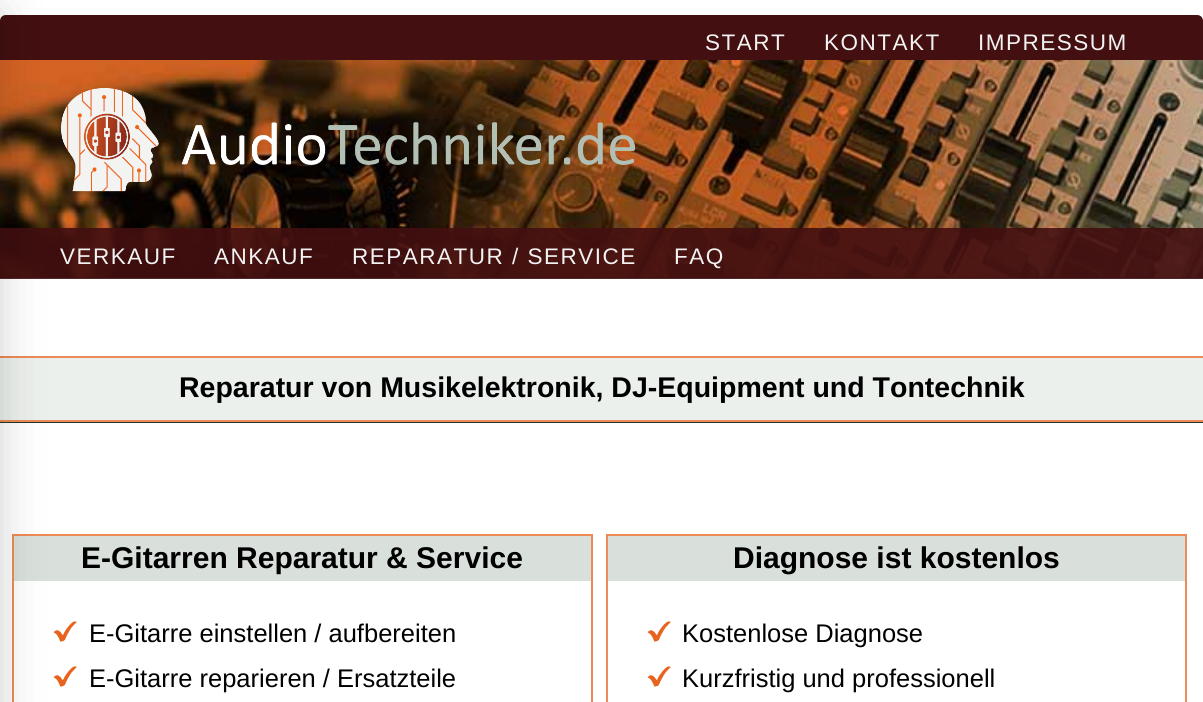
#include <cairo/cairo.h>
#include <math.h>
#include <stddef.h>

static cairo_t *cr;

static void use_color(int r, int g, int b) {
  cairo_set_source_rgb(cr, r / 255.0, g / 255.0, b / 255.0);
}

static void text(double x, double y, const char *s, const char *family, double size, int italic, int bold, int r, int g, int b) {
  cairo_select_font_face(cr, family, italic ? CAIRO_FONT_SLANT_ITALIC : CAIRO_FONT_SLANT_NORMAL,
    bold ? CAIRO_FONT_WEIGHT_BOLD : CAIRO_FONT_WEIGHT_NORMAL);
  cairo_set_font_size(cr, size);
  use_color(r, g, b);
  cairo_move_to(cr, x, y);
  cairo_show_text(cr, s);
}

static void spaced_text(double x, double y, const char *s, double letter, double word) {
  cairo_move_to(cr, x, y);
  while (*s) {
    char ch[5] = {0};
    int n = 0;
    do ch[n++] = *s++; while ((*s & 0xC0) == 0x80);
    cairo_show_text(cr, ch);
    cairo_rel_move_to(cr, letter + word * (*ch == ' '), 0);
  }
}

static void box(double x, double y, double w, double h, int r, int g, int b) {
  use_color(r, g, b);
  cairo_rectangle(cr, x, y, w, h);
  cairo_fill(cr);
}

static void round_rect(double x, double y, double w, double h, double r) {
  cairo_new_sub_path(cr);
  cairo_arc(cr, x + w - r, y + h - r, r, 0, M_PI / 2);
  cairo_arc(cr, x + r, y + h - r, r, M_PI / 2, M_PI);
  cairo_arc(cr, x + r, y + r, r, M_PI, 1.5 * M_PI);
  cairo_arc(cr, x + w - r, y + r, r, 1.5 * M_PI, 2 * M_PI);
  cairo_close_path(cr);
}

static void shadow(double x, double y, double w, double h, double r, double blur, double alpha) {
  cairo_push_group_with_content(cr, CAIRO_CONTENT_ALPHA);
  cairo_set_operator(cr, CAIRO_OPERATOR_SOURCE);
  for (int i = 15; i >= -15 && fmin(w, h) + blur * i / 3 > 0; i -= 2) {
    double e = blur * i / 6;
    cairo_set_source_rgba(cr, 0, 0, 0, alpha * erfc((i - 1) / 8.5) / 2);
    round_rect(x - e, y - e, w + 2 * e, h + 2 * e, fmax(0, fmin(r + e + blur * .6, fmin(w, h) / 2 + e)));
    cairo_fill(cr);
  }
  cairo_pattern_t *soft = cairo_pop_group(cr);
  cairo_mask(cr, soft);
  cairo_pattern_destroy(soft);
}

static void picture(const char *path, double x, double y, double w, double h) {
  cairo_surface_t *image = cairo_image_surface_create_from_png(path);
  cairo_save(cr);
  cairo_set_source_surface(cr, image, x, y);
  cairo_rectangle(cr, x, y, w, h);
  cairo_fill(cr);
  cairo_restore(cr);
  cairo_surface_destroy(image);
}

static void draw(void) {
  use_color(255, 255, 255);
  cairo_paint(cr);
  use_color(67, 15, 16);
  cairo_new_path(cr);
  cairo_move_to(cr, 6, 15);
  cairo_line_to(cr, 1197, 15);
  cairo_curve_to(cr, 1200.5, 15, 1203, 17.5, 1203, 21);
  cairo_line_to(cr, 1203, 60);
  cairo_line_to(cr, 0, 60);
  cairo_line_to(cr, 0, 21);
  cairo_curve_to(cr, 0, 17.5, 2.5, 15, 6, 15);
  cairo_close_path(cr);
  cairo_fill(cr);
  box(0, 277, 1203, 1, 35, 53, 41);
  picture("img_01.png", 0, 60, 1203, 218);
  picture("img_02.png", 61, 87, 575, 105);
  cairo_set_source_rgba(cr, 0.263, 0.059, 0.063, 0.9);
  cairo_rectangle(cr, 0, 228, 1203, 51);
  cairo_fill(cr);
  box(0, 422, 1203, 1, 35, 53, 41);
  box(0, 358, 1203, 62, 236, 240, 237);
  box(0, 356, 1203, 2, 236, 139, 86);
  box(0, 420, 1203, 2, 236, 139, 86);
  cairo_rectangle(cr, 13, 535, 579, 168);
  cairo_stroke(cr);
  box(14, 536, 577, 45, 217, 224, 219);
  picture("img_03.png", 53, 621, 24, 21);
  picture("img_03.png", 53, 666, 24, 21);
  use_color(0, 0, 0);
  shadow(-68, 15, 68, 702, 0, 22.5, 0.18);
  cairo_rectangle(cr, 607, 535, 579, 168);
  use_color(236, 139, 86);
  cairo_stroke(cr);
  box(608, 536, 577, 45, 217, 224, 219);
  picture("img_03.png", 647, 621, 24, 21);
  picture("img_03.png", 647, 666, 24, 21);
  cairo_select_font_face(cr, "Liberation Sans", CAIRO_FONT_SLANT_NORMAL, CAIRO_FONT_WEIGHT_NORMAL);
  cairo_set_font_size(cr, 22.5);
  use_color(242, 242, 242);
  spaced_text(705, 50, "START", 1.5, 0);
  spaced_text(824, 50, "KONTAKT", 1.5, 0);
  spaced_text(978, 50, "IMPRESSUM", 1.5, 0);
  spaced_text(60, 264, "VERKAUF", 1.5, 0);
  spaced_text(214, 264, "ANKAUF", 1.5, 0);
  spaced_text(352, 264, "REPARATUR / SERVICE", 1.5, 0);
  spaced_text(674, 264, "FAQ", 1.5, 0);
  text(179, 397, "Reparatur von Musikelektronik, DJ-Equipment und Tontechnik", "Liberation Sans", 28.5, 0, 1, 0, 0, 0);
  text(81, 568, "E-Gitarren Reparatur & Service", "Liberation Sans", 30, 0, 1, 0, 0, 0);
  text(89, 642, "E-Gitarre einstellen / aufbereiten", "Liberation Sans", 25.5, 0, 0, 0, 0, 0);
  text(89, 687, "E-Gitarre reparieren / Ersatzteile", "Liberation Sans", 25.5, 0, 0, 0, 0, 0);
  text(733, 568, "Diagnose ist kostenlos", "Liberation Sans", 30, 0, 1, 0, 0, 0);
  text(682, 642, "Kostenlose Diagnose", "Liberation Sans", 25.5, 0, 0, 0, 0, 0);
  text(682, 687, "Kurzfristig und professionell", "Liberation Sans", 25.5, 0, 0, 0, 0, 0);
}

int main(void) {
  cairo_surface_t *surface = cairo_image_surface_create(CAIRO_FORMAT_RGB24, 1203, 702);
  cr = cairo_create(surface);
  cairo_font_options_t *options = cairo_font_options_create();
  cairo_font_options_set_hint_metrics(options, CAIRO_HINT_METRICS_OFF);
  cairo_font_options_set_hint_style(options, CAIRO_HINT_STYLE_NONE);
  cairo_set_font_options(cr, options);
  cairo_set_miter_limit(cr, 4);
  draw();
  cairo_surface_write_to_png(surface, "out.png");
  cairo_font_options_destroy(options);
  cairo_destroy(cr);
  cairo_surface_destroy(surface);
  return 0;
}
